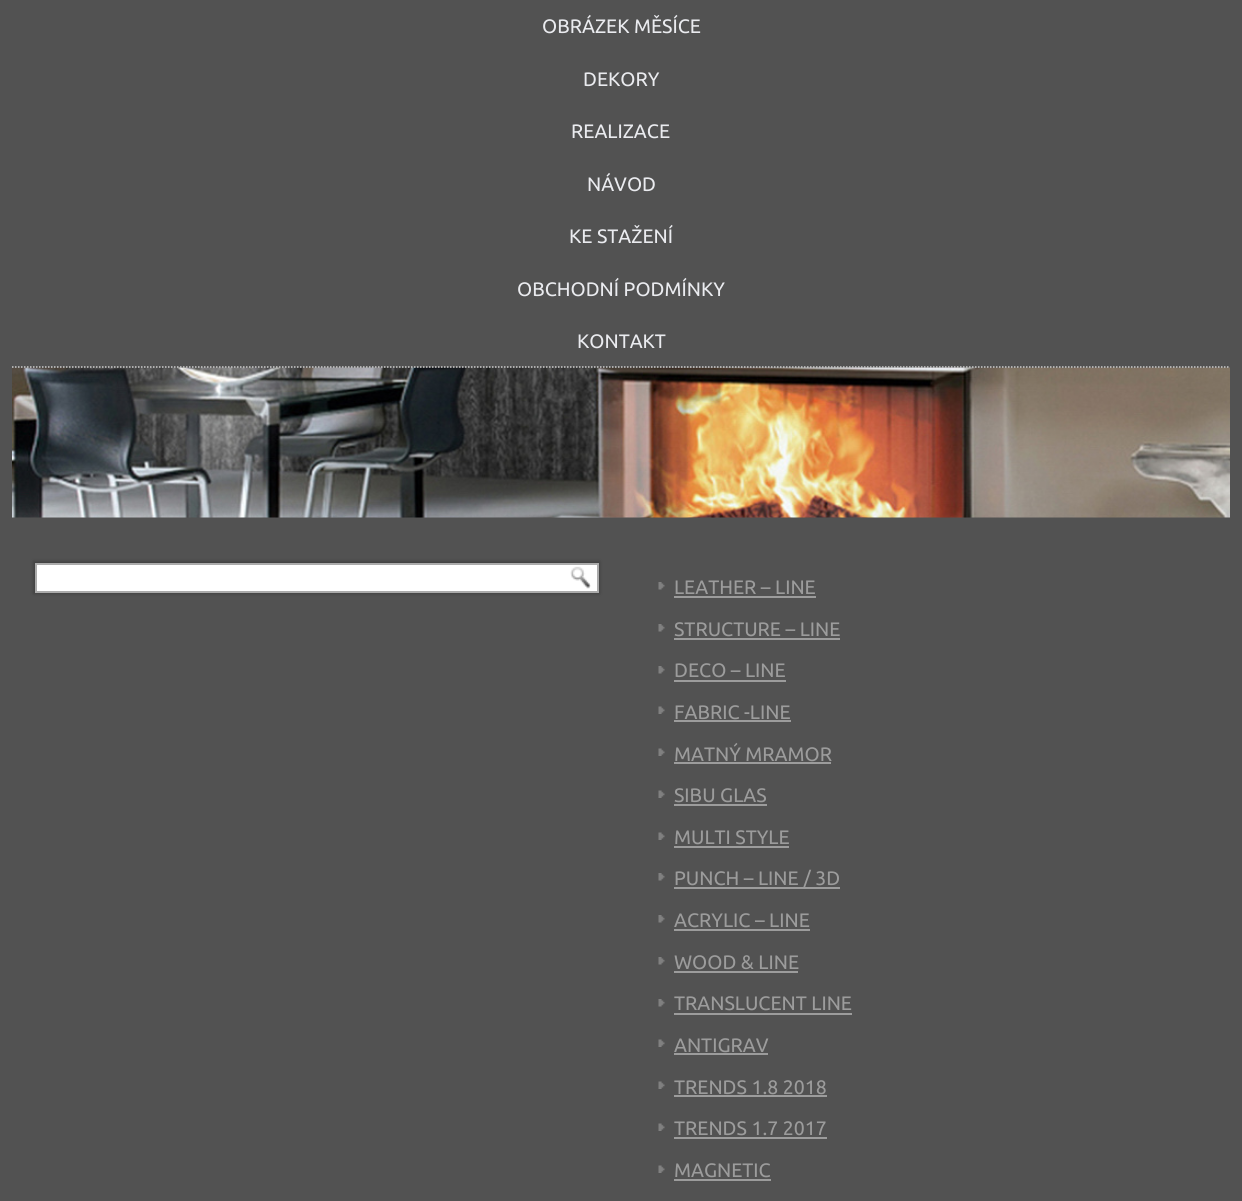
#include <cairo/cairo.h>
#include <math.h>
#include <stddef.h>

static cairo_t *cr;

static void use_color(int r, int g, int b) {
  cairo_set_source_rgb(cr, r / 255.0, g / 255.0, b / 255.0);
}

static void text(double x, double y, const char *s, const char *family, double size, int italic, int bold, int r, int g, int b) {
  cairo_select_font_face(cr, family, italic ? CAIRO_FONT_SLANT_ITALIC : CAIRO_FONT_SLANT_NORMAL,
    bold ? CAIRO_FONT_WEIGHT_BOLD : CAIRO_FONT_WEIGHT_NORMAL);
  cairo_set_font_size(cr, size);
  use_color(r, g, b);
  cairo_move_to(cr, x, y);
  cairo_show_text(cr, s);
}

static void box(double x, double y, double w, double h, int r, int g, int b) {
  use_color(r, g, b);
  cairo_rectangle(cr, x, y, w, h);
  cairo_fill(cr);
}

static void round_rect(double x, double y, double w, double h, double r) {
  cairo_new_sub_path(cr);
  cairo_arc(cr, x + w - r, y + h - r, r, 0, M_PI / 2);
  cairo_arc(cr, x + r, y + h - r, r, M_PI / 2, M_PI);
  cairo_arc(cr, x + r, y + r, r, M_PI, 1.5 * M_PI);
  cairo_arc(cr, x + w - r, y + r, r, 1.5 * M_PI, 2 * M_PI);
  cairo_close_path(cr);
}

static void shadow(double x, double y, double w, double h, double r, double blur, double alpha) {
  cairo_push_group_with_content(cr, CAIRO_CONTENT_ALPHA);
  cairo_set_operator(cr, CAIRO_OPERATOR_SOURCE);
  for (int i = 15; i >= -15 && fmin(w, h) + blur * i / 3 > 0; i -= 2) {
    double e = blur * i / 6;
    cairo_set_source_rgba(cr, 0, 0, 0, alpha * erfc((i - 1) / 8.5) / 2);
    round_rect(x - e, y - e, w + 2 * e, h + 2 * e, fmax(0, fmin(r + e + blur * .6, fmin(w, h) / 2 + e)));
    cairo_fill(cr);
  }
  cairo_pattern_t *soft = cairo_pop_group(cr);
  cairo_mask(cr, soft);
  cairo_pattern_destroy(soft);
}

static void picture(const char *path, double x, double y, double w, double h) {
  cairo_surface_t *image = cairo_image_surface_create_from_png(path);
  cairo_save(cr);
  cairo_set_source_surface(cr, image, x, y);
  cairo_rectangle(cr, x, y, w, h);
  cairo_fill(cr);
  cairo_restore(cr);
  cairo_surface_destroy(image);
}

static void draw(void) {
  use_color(82, 82, 82);
  cairo_paint(cr);
  picture("img_01.png", 12, 367, 1218, 151);
  cairo_new_path(cr);
  cairo_move_to(cr, 12, 367);
  cairo_line_to(cr, 1230, 367);
  use_color(204, 204, 204);
  cairo_set_line_width(cr, 1.5);
  cairo_set_dash(cr, (double[]){1.5, 1.5}, 2, 0);
  cairo_stroke(cr);
  use_color(0, 0, 0);
  shadow(33, 561, 567, 33, 0, 1.5, 0.2);
  use_color(255, 255, 255);
  cairo_rectangle(cr, 36, 564, 562, 28);
  cairo_fill_preserve(cr);
  use_color(171, 171, 171);
  cairo_set_line_width(cr, 2);
  cairo_set_dash(cr, NULL, 0, 0);
  cairo_stroke(cr);
  picture("img_02.png", 570, 566, 21, 23);
  picture("img_03.png", 658, 582, 7, 8);
  box(674, 596, 142, 2, 156, 156, 156);
  picture("img_03.png", 658, 624, 7, 8);
  box(674, 638, 166, 2, 156, 156, 156);
  picture("img_03.png", 658, 666, 7, 8);
  box(674, 680, 112, 2, 156, 156, 156);
  picture("img_04.png", 658, 706, 7, 8);
  box(674, 720, 117, 2, 156, 156, 156);
  picture("img_04.png", 658, 748, 7, 8);
  box(674, 762, 157, 2, 156, 156, 156);
  picture("img_04.png", 658, 790, 7, 8);
  box(674, 804, 93, 2, 156, 156, 156);
  picture("img_04.png", 658, 832, 7, 8);
  box(674, 846, 115, 2, 156, 156, 156);
  picture("img_03.png", 658, 873, 7, 8);
  box(674, 887, 166, 2, 156, 156, 156);
  picture("img_03.png", 658, 915, 7, 8);
  box(674, 929, 136, 2, 156, 156, 156);
  picture("img_03.png", 658, 957, 7, 8);
  box(674, 971, 124, 2, 156, 156, 156);
  picture("img_03.png", 658, 999, 7, 8);
  box(674, 1013, 178, 2, 156, 156, 156);
  picture("img_04.png", 658, 1039, 7, 8);
  box(674, 1053, 94, 2, 156, 156, 156);
  picture("img_04.png", 658, 1081, 7, 8);
  box(674, 1095, 153, 2, 156, 156, 156);
  picture("img_04.png", 658, 1123, 7, 8);
  box(674, 1137, 153, 2, 156, 156, 156);
  picture("img_04.png", 658, 1165, 7, 8);
  box(674, 1179, 97, 2, 156, 156, 156);
  text(542, 33, "OBRÁZEK MĚSÍCE", "Ubuntu", 19.5, 0, 0, 234, 235, 239);
  text(583, 86, "DEKORY", "Ubuntu", 19.5, 0, 0, 234, 235, 239);
  text(571, 138, "REALIZACE", "Ubuntu", 19.5, 0, 0, 234, 235, 239);
  text(587, 191, "NÁVOD", "Ubuntu", 19.5, 0, 0, 234, 235, 239);
  text(569, 243, "KE STAŽENÍ", "Ubuntu", 19.5, 0, 0, 234, 235, 239);
  text(517, 296, "OBCHODNÍ PODMÍNKY", "Ubuntu", 19.5, 0, 0, 234, 235, 239);
  text(577, 348, "KONTAKT", "Ubuntu", 19.5, 0, 0, 234, 235, 239);
  text(674, 594, "LEATHER – LINE", "Ubuntu", 19.5, 0, 0, 156, 156, 156);
  text(674, 636, "STRUCTURE – LINE", "Ubuntu", 19.5, 0, 0, 156, 156, 156);
  text(674, 677, "DECO – LINE", "Ubuntu", 19.5, 0, 0, 156, 156, 156);
  text(674, 719, "FABRIC -LINE", "Ubuntu", 19.5, 0, 0, 156, 156, 156);
  text(674, 761, "MATNÝ MRAMOR", "Ubuntu", 19.5, 0, 0, 156, 156, 156);
  text(674, 802, "SIBU GLAS", "Ubuntu", 19.5, 0, 0, 156, 156, 156);
  text(674, 844, "MULTI STYLE", "Ubuntu", 19.5, 0, 0, 156, 156, 156);
  text(674, 885, "PUNCH – LINE / 3D", "Ubuntu", 19.5, 0, 0, 156, 156, 156);
  text(674, 927, "ACRYLIC – LINE", "Ubuntu", 19.5, 0, 0, 156, 156, 156);
  text(674, 969, "WOOD & LINE", "Ubuntu", 19.5, 0, 0, 156, 156, 156);
  text(674, 1010, "TRANSLUCENT LINE", "Ubuntu", 19.5, 0, 0, 156, 156, 156);
  text(674, 1052, "ANTIGRAV", "Ubuntu", 19.5, 0, 0, 156, 156, 156);
  text(674, 1094, "TRENDS 1.8 2018", "Ubuntu", 19.5, 0, 0, 156, 156, 156);
  text(674, 1135, "TRENDS 1.7 2017", "Ubuntu", 19.5, 0, 0, 156, 156, 156);
  text(674, 1177, "MAGNETIC", "Ubuntu", 19.5, 0, 0, 156, 156, 156);
}

int main(void) {
  cairo_surface_t *surface = cairo_image_surface_create(CAIRO_FORMAT_RGB24, 1242, 1201);
  cr = cairo_create(surface);
  cairo_font_options_t *options = cairo_font_options_create();
  cairo_font_options_set_hint_metrics(options, CAIRO_HINT_METRICS_OFF);
  cairo_font_options_set_hint_style(options, CAIRO_HINT_STYLE_NONE);
  cairo_set_font_options(cr, options);
  cairo_set_miter_limit(cr, 4);
  draw();
  cairo_surface_write_to_png(surface, "out.png");
  cairo_font_options_destroy(options);
  cairo_destroy(cr);
  cairo_surface_destroy(surface);
  return 0;
}
